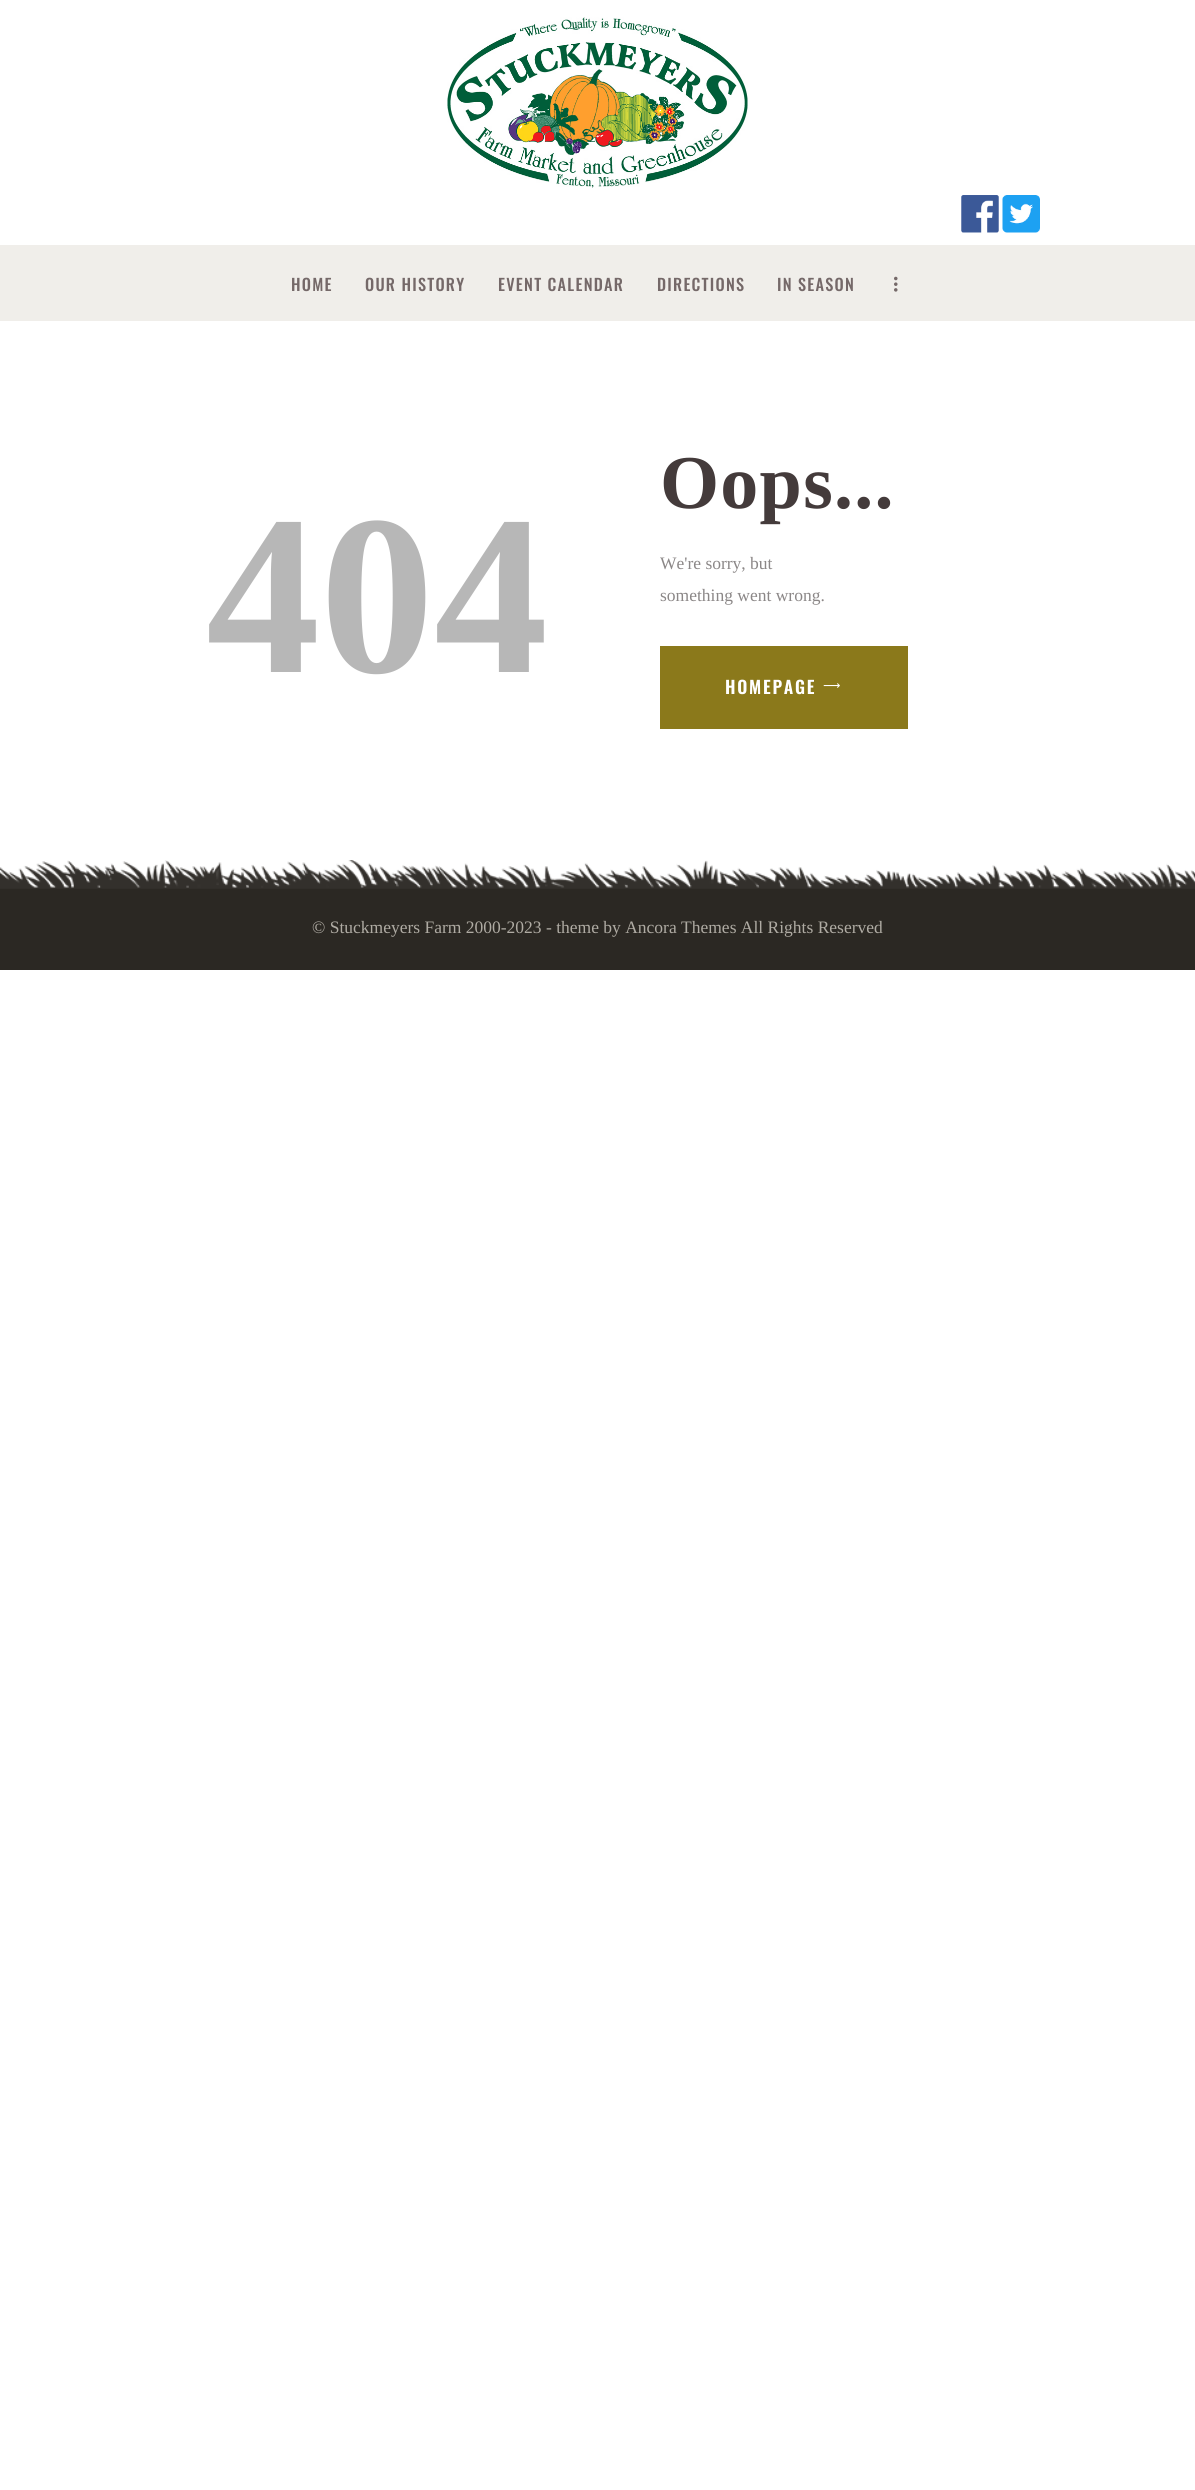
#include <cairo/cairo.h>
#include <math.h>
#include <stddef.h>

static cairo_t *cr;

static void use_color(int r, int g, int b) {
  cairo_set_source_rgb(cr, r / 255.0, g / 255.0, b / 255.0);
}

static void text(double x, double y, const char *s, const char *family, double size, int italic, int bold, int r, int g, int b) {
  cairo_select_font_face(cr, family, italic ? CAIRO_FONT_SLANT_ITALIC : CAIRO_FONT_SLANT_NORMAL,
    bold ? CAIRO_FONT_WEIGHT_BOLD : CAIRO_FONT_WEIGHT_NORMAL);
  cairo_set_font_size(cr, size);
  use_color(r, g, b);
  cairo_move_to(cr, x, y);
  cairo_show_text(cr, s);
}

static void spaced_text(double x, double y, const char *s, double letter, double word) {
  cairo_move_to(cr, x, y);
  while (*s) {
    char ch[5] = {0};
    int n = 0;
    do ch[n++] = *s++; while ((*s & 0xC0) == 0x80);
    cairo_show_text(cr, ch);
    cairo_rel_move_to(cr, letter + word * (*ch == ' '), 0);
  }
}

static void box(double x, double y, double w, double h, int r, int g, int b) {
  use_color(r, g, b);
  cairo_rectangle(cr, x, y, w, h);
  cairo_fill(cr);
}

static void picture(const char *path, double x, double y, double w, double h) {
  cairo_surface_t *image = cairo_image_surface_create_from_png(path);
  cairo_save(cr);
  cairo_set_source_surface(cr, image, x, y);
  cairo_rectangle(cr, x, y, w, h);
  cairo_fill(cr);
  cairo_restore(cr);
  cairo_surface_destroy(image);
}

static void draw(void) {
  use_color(255, 255, 255);
  cairo_paint(cr);
  picture("img_01.png", 447, 17, 301, 171);
  picture("img_02.png", 961, 195, 38, 38);
  picture("img_03.png", 1002, 195, 38, 38);
  box(0, 245, 1195, 76, 240, 238, 234);
  picture("img_04.png", 894, 276, 4, 16);
  box(660, 646, 248, 83, 139, 121, 27);
  picture("img_05.png", 823, 683, 17, 5);
  box(0, 888, 1195, 82, 43, 40, 35);
  picture("img_06.png", 0, 860, 1195, 29);
  cairo_select_font_face(cr, "Oswald Medium", CAIRO_FONT_SLANT_NORMAL, CAIRO_FONT_WEIGHT_NORMAL);
  cairo_set_font_size(cr, 16.25);
  use_color(117, 105, 105);
  spaced_text(291, 291, "HOME", 1.25, 0);
  spaced_text(365, 291, "OUR HISTORY", 1.25, 0);
  spaced_text(498, 291, "EVENT CALENDAR", 1.25, 0);
  spaced_text(657, 291, "DIRECTIONS", 1.25, 0);
  spaced_text(777, 291, "IN SEASON", 1.25, 0);
  text(206, 672, "404", "Liberation Serif", 228, 0, 1, 183, 183, 183);
  cairo_set_font_size(cr, 76);
  use_color(68, 59, 59);
  spaced_text(660, 508, "Oops...", 1.25, 0);
  text(660, 569, "We're sorry, but", "Liberation Serif", 17.5, 0, 0, 139, 135, 135);
  text(660, 601, "something went wrong.", "Liberation Serif", 17.5, 0, 0, 139, 135, 135);
  cairo_select_font_face(cr, "Oswald SemiBold", CAIRO_FONT_SLANT_NORMAL, CAIRO_FONT_WEIGHT_NORMAL);
  use_color(255, 255, 255);
  spaced_text(725, 694, "HOMEPAGE", 1.75, 0);
  text(312, 933, "© Stuckmeyers Farm 2000-2023 - theme by Ancora Themes All Rights Reserved", "Liberation Serif", 17.5, 0, 0, 175, 171, 163);
}

int main(void) {
  cairo_surface_t *surface = cairo_image_surface_create(CAIRO_FORMAT_RGB24, 1195, 2490);
  cr = cairo_create(surface);
  cairo_font_options_t *options = cairo_font_options_create();
  cairo_font_options_set_hint_metrics(options, CAIRO_HINT_METRICS_OFF);
  cairo_font_options_set_hint_style(options, CAIRO_HINT_STYLE_NONE);
  cairo_set_font_options(cr, options);
  cairo_set_miter_limit(cr, 4);
  draw();
  cairo_surface_write_to_png(surface, "out.png");
  cairo_font_options_destroy(options);
  cairo_destroy(cr);
  cairo_surface_destroy(surface);
  return 0;
}
